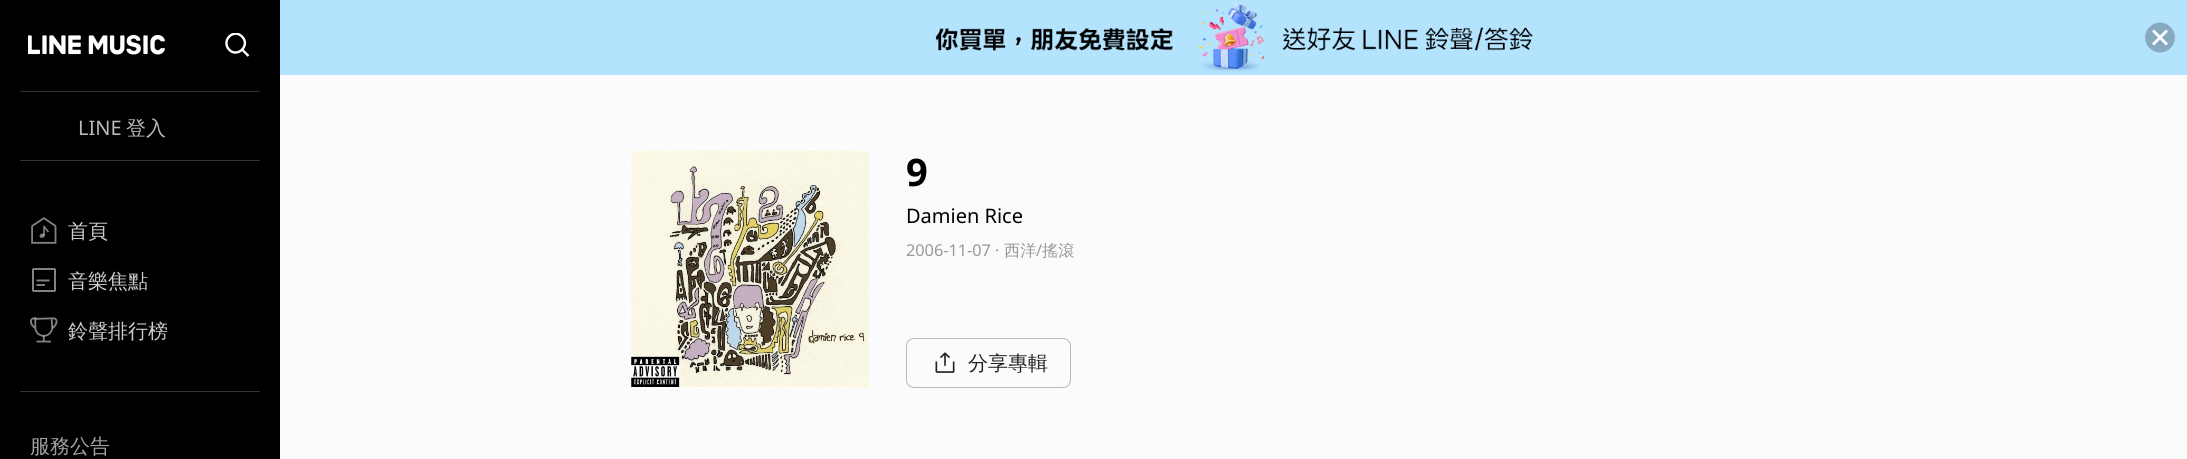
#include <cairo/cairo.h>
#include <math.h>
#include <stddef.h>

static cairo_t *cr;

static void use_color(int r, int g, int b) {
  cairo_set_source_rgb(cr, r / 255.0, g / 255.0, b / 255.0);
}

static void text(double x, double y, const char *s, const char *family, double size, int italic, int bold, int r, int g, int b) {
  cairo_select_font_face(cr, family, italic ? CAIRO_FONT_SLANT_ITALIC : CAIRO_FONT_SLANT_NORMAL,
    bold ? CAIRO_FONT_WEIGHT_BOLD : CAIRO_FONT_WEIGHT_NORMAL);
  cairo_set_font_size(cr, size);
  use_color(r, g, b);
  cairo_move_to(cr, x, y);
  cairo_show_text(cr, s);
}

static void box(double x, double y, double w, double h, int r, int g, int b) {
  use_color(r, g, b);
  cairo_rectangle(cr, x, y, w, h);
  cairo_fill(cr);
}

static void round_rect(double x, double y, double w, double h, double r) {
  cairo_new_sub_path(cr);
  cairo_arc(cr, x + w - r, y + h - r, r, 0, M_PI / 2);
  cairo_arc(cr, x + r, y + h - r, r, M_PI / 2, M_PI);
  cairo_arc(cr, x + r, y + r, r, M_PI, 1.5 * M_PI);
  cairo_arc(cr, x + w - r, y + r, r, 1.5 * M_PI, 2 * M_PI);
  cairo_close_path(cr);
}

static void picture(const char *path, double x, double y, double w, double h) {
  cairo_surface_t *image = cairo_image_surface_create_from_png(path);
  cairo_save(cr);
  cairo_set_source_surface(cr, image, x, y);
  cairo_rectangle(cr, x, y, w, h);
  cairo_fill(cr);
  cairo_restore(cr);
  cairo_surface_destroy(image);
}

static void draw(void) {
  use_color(251, 251, 251);
  cairo_paint(cr);
  box(0, 0, 280, 459, 0, 0, 0);
  picture("img_01.png", 28, 35, 137, 20);
  cairo_save(cr);
  cairo_rectangle(cr, 225, 33, 25, 25);
  cairo_clip(cr);
  cairo_new_path(cr);
  cairo_move_to(cr, 242, 36.5);
  cairo_curve_to(cr, 251, 45.5, 237, 58.5, 229, 49.5);
  cairo_curve_to(cr, 221, 40.5, 233.5, 28, 242, 36.5);
  cairo_close_path(cr);
  cairo_move_to(cr, 242, 49.5);
  cairo_line_to(cr, 248.5, 56);
  use_color(255, 255, 255);
  cairo_set_line_width(cr, 2.4);
  cairo_stroke(cr);
  cairo_restore(cr);
  box(20, 91, 240, 1, 51, 51, 51);
  box(20, 160, 240, 1, 51, 51, 51);
  box(20, 391, 240, 1, 51, 51, 51);
  picture("img_02.png", 31, 217, 26, 27);
  round_rect(33, 269, 22, 22, 0.5);
  use_color(130, 130, 130);
  cairo_stroke(cr);
  cairo_new_path(cr);
  cairo_move_to(cr, 36.5, 280.5);
  cairo_line_to(cr, 49.5, 280.5);
  cairo_move_to(cr, 36.5, 285);
  cairo_line_to(cr, 45, 285);
  cairo_set_line_width(cr, 1.9);
  cairo_stroke(cr);
  picture("img_03.png", 30, 317, 28, 26);
  box(280, 0, 1907, 75, 180, 227, 254);
  picture("img_04.png", 935, 3, 598, 69);
  use_color(135, 170, 191);
  cairo_new_path(cr);
  cairo_move_to(cr, 2170.5, 27);
  cairo_curve_to(cr, 2176.5, 33, 2176.5, 42, 2170.5, 48);
  cairo_curve_to(cr, 2164.5, 54, 2155.5, 54, 2149.5, 48);
  cairo_curve_to(cr, 2143.5, 42, 2143.5, 33, 2149.5, 27);
  cairo_curve_to(cr, 2155.5, 21, 2164.5, 21, 2170.5, 27);
  cairo_close_path(cr);
  cairo_fill(cr);
  use_color(255, 255, 255);
  cairo_new_path(cr);
  cairo_move_to(cr, 2154, 29.5);
  cairo_line_to(cr, 2168, 43.5);
  cairo_line_to(cr, 2166, 45.5);
  cairo_line_to(cr, 2152, 31.5);
  cairo_close_path(cr);
  cairo_fill(cr);
  cairo_new_path(cr);
  cairo_move_to(cr, 2166, 29.5);
  cairo_line_to(cr, 2168, 31.5);
  cairo_line_to(cr, 2154, 45.5);
  cairo_line_to(cr, 2152, 43.5);
  cairo_close_path(cr);
  cairo_fill(cr);
  picture("img_05.png", 631, 150, 238, 238);
  round_rect(906.5, 338.5, 164, 49, 7.5);
  use_color(186, 186, 186);
  cairo_set_line_width(cr, 1);
  cairo_stroke(cr);
  picture("img_06.png", 935, 352, 20, 21);
  text(78, 135, "LINE", "Noto Sans", 20, 0, 0, 186, 186, 186);
  text(126, 135, "登入", "WenQuanYi Zen Hei Medium", 20, 0, 0, 186, 186, 186);
  text(68, 238, "首頁", "WenQuanYi Zen Hei Medium", 20, 0, 0, 204, 204, 204);
  text(68, 288, "音樂焦點", "WenQuanYi Zen Hei Medium", 20, 0, 0, 204, 204, 204);
  text(68, 338, "鈴聲排行榜", "WenQuanYi Zen Hei Medium", 20, 0, 0, 204, 204, 204);
  text(30, 453, "服務公告", "WenQuanYi Zen Hei Medium", 20, 0, 0, 163, 163, 163);
  text(906, 186, "9", "Noto Sans", 38, 0, 1, 0, 0, 0);
  text(906, 223, "Damien Rice", "Noto Sans", 20, 0, 0, 0, 0, 0);
  text(906, 256, "2006-11-07 ·", "Noto Sans", 16.25, 0, 0, 153, 153, 153);
  text(1004, 256, "西洋", "WenQuanYi Zen Hei Medium", 16.25, 0, 0, 153, 153, 153);
  text(1036, 256, "/", "Noto Sans", 16.25, 0, 0, 153, 153, 153);
  text(1042, 256, "搖滾", "WenQuanYi Zen Hei Medium", 16.25, 0, 0, 153, 153, 153);
  text(968, 370, "分享專輯", "WenQuanYi Zen Hei Medium", 20, 0, 0, 35, 35, 35);
}

int main(void) {
  cairo_surface_t *surface = cairo_image_surface_create(CAIRO_FORMAT_RGB24, 2187, 459);
  cr = cairo_create(surface);
  cairo_font_options_t *options = cairo_font_options_create();
  cairo_font_options_set_hint_metrics(options, CAIRO_HINT_METRICS_OFF);
  cairo_font_options_set_hint_style(options, CAIRO_HINT_STYLE_NONE);
  cairo_set_font_options(cr, options);
  cairo_set_miter_limit(cr, 4);
  draw();
  cairo_surface_write_to_png(surface, "out.png");
  cairo_font_options_destroy(options);
  cairo_destroy(cr);
  cairo_surface_destroy(surface);
  return 0;
}
